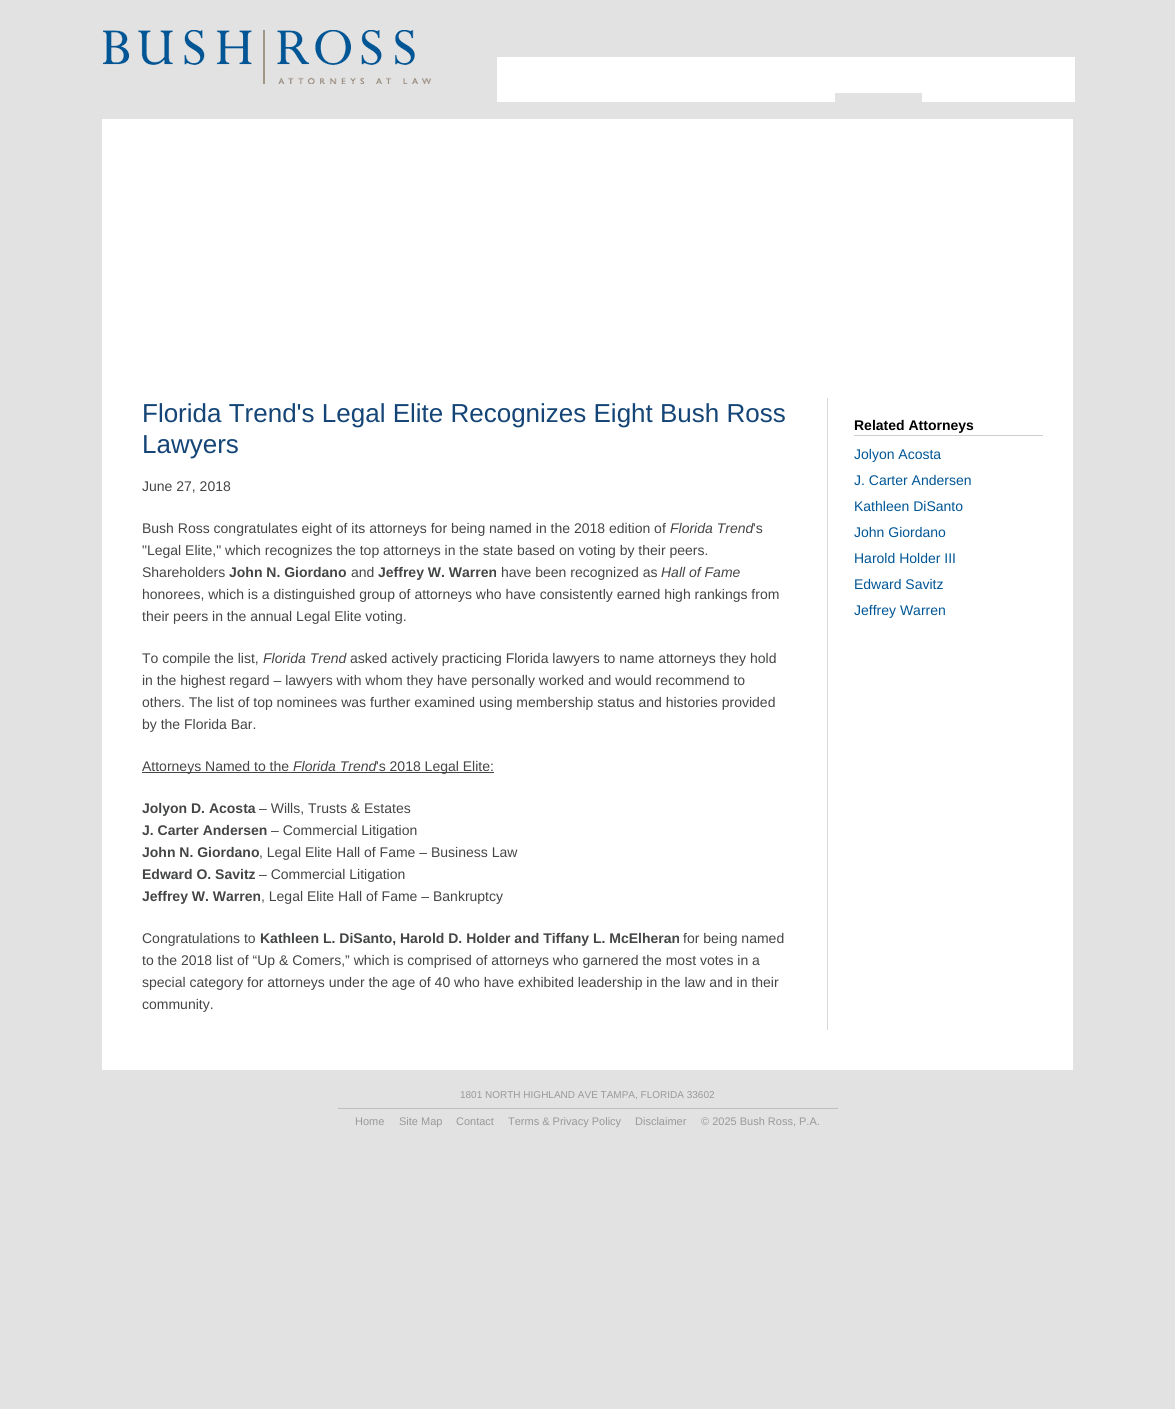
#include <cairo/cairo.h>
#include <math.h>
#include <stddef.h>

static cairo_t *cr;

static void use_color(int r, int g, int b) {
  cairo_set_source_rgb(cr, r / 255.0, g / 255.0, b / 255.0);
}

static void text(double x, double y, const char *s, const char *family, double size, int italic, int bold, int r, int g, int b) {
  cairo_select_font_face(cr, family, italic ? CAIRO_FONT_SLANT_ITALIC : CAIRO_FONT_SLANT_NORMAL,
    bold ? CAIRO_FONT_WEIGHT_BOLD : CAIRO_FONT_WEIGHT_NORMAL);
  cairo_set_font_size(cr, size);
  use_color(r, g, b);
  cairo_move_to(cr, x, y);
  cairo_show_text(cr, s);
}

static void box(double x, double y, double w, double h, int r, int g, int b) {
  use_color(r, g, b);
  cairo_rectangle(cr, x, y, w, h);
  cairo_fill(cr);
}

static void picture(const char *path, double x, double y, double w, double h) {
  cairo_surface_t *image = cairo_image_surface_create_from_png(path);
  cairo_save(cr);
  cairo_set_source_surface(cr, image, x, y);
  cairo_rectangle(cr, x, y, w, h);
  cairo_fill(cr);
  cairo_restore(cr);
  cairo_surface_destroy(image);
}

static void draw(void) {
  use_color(226, 226, 226);
  cairo_paint(cr);
  picture("img_01.png", 103, 30, 328, 54);
  box(497, 57, 338, 45, 255, 255, 255);
  box(835, 57, 87, 36, 255, 255, 255);
  box(922, 57, 153, 45, 255, 255, 255);
  box(102, 119, 971, 951, 255, 255, 255);
  box(827, 398, 1, 632, 218, 218, 218);
  box(142, 772, 352, 1, 68, 69, 69);
  box(854, 435, 189, 1, 206, 206, 206);
  box(338, 1108, 500, 1, 192, 191, 191);
  text(142, 422, "Florida Trend's Legal Elite Recognizes Eight Bush Ross", "Liberation Sans", 26, 0, 0, 20, 69, 118);
  text(142, 453, "Lawyers", "Liberation Sans", 26, 0, 0, 20, 69, 118);
  text(142, 491, "June 27, 2018", "Liberation Sans", 14, 0, 0, 68, 69, 69);
  text(142, 533, "Bush Ross congratulates eight of its attorneys for being named in the 2018 edition of", "Liberation Sans", 14, 0, 0, 68, 69, 69);
  text(670, 533, "Florida Trend", "Liberation Sans", 14, 1, 0, 68, 69, 69);
  text(753, 533, "'s", "Liberation Sans", 14, 0, 0, 68, 69, 69);
  text(142, 555, "\"Legal Elite,\" which recognizes the top attorneys in the state based on voting by their peers.", "Liberation Sans", 14, 0, 0, 68, 69, 69);
  text(142, 577, "Shareholders", "Liberation Sans", 14, 0, 0, 68, 69, 69);
  text(229, 577, "John N. Giordano", "Liberation Sans", 14, 0, 1, 68, 69, 69);
  text(351, 577, "and", "Liberation Sans", 14, 0, 0, 68, 69, 69);
  text(378, 577, "Jeffrey W. Warren", "Liberation Sans", 14, 0, 1, 68, 69, 69);
  text(501, 577, "have been recognized as", "Liberation Sans", 14, 0, 0, 68, 69, 69);
  text(661, 577, "Hall of Fame", "Liberation Sans", 14, 1, 0, 68, 69, 69);
  text(142, 599, "honorees, which is a distinguished group of attorneys who have consistently earned high rankings from", "Liberation Sans", 14, 0, 0, 68, 69, 69);
  text(142, 621, "their peers in the annual Legal Elite voting.", "Liberation Sans", 14, 0, 0, 68, 69, 69);
  text(142, 663, "To compile the list,", "Liberation Sans", 14, 0, 0, 68, 69, 69);
  text(263, 663, "Florida Trend", "Liberation Sans", 14, 1, 0, 68, 69, 69);
  text(350, 663, "asked actively practicing Florida lawyers to name attorneys they hold", "Liberation Sans", 14, 0, 0, 68, 69, 69);
  text(142, 685, "in the highest regard – lawyers with whom they have personally worked and would recommend to", "Liberation Sans", 14, 0, 0, 68, 69, 69);
  text(142, 707, "others. The list of top nominees was further examined using membership status and histories provided", "Liberation Sans", 14, 0, 0, 68, 69, 69);
  text(142, 729, "by the Florida Bar.", "Liberation Sans", 14, 0, 0, 68, 69, 69);
  text(142, 771, "Attorneys Named to the", "Liberation Sans", 14, 0, 0, 68, 69, 69);
  text(293, 771, "Florida Trend", "Liberation Sans", 14, 1, 0, 68, 69, 69);
  text(376, 771, "'s 2018 Legal Elite:", "Liberation Sans", 14, 0, 0, 68, 69, 69);
  text(142, 813, "Jolyon D. Acosta", "Liberation Sans", 14, 0, 1, 68, 69, 69);
  text(259, 813, "– Wills, Trusts & Estates", "Liberation Sans", 14, 0, 0, 68, 69, 69);
  text(142, 835, "J. Carter Andersen", "Liberation Sans", 14, 0, 1, 68, 69, 69);
  text(271, 835, "– Commercial Litigation", "Liberation Sans", 14, 0, 0, 68, 69, 69);
  text(142, 857, "John N. Giordano", "Liberation Sans", 14, 0, 1, 68, 69, 69);
  text(259, 857, ", Legal Elite Hall of Fame – Business Law", "Liberation Sans", 14, 0, 0, 68, 69, 69);
  text(142, 879, "Edward O. Savitz", "Liberation Sans", 14, 0, 1, 68, 69, 69);
  text(259, 879, "– Commercial Litigation", "Liberation Sans", 14, 0, 0, 68, 69, 69);
  text(142, 901, "Jeffrey W. Warren", "Liberation Sans", 14, 0, 1, 68, 69, 69);
  text(261, 901, ", Legal Elite Hall of Fame – Bankruptcy", "Liberation Sans", 14, 0, 0, 68, 69, 69);
  text(142, 943, "Congratulations to", "Liberation Sans", 14, 0, 0, 68, 69, 69);
  text(260, 943, "Kathleen L. DiSanto, Harold D. Holder and Tiffany L. McElheran", "Liberation Sans", 14, 0, 1, 68, 69, 69);
  text(683, 943, "for being named", "Liberation Sans", 14, 0, 0, 68, 69, 69);
  text(142, 965, "to the 2018 list of “Up & Comers,” which is comprised of attorneys who garnered the most votes in a", "Liberation Sans", 14, 0, 0, 68, 69, 69);
  text(142, 987, "special category for attorneys under the age of 40 who have exhibited leadership in the law and in their", "Liberation Sans", 14, 0, 0, 68, 69, 69);
  text(142, 1009, "community.", "Liberation Sans", 14, 0, 0, 68, 69, 69);
  text(854, 430, "Related Attorneys", "Liberation Sans", 14, 0, 1, 1, 1, 1);
  text(854, 459, "Jolyon Acosta", "Liberation Sans", 14, 0, 0, 0, 85, 149);
  text(854, 485, "J. Carter Andersen", "Liberation Sans", 14, 0, 0, 0, 85, 149);
  text(854, 511, "Kathleen DiSanto", "Liberation Sans", 14, 0, 0, 0, 85, 149);
  text(854, 537, "John Giordano", "Liberation Sans", 14, 0, 0, 0, 85, 149);
  text(854, 563, "Harold Holder III", "Liberation Sans", 14, 0, 0, 0, 85, 149);
  text(854, 589, "Edward Savitz", "Liberation Sans", 14, 0, 0, 0, 85, 149);
  text(854, 615, "Jeffrey Warren", "Liberation Sans", 14, 0, 0, 0, 85, 149);
  text(460, 1098, "1801 NORTH HIGHLAND AVE TAMPA, FLORIDA 33602", "Liberation Sans", 10, 0, 0, 153, 153, 153);
  text(355, 1125, "Home", "Liberation Sans", 11, 0, 0, 153, 153, 153);
  text(399, 1125, "Site Map", "Liberation Sans", 11, 0, 0, 153, 153, 153);
  text(456, 1125, "Contact", "Liberation Sans", 11, 0, 0, 153, 153, 153);
  text(508, 1125, "Terms & Privacy Policy", "Liberation Sans", 11, 0, 0, 153, 153, 153);
  text(635, 1125, "Disclaimer", "Liberation Sans", 11, 0, 0, 153, 153, 153);
  text(701, 1125, "© 2025 Bush Ross, P.A.", "Liberation Sans", 11, 0, 0, 153, 153, 153);
}

int main(void) {
  cairo_surface_t *surface = cairo_image_surface_create(CAIRO_FORMAT_RGB24, 1175, 1409);
  cr = cairo_create(surface);
  cairo_font_options_t *options = cairo_font_options_create();
  cairo_font_options_set_hint_metrics(options, CAIRO_HINT_METRICS_OFF);
  cairo_font_options_set_hint_style(options, CAIRO_HINT_STYLE_NONE);
  cairo_set_font_options(cr, options);
  cairo_set_miter_limit(cr, 4);
  draw();
  cairo_surface_write_to_png(surface, "out.png");
  cairo_font_options_destroy(options);
  cairo_destroy(cr);
  cairo_surface_destroy(surface);
  return 0;
}
